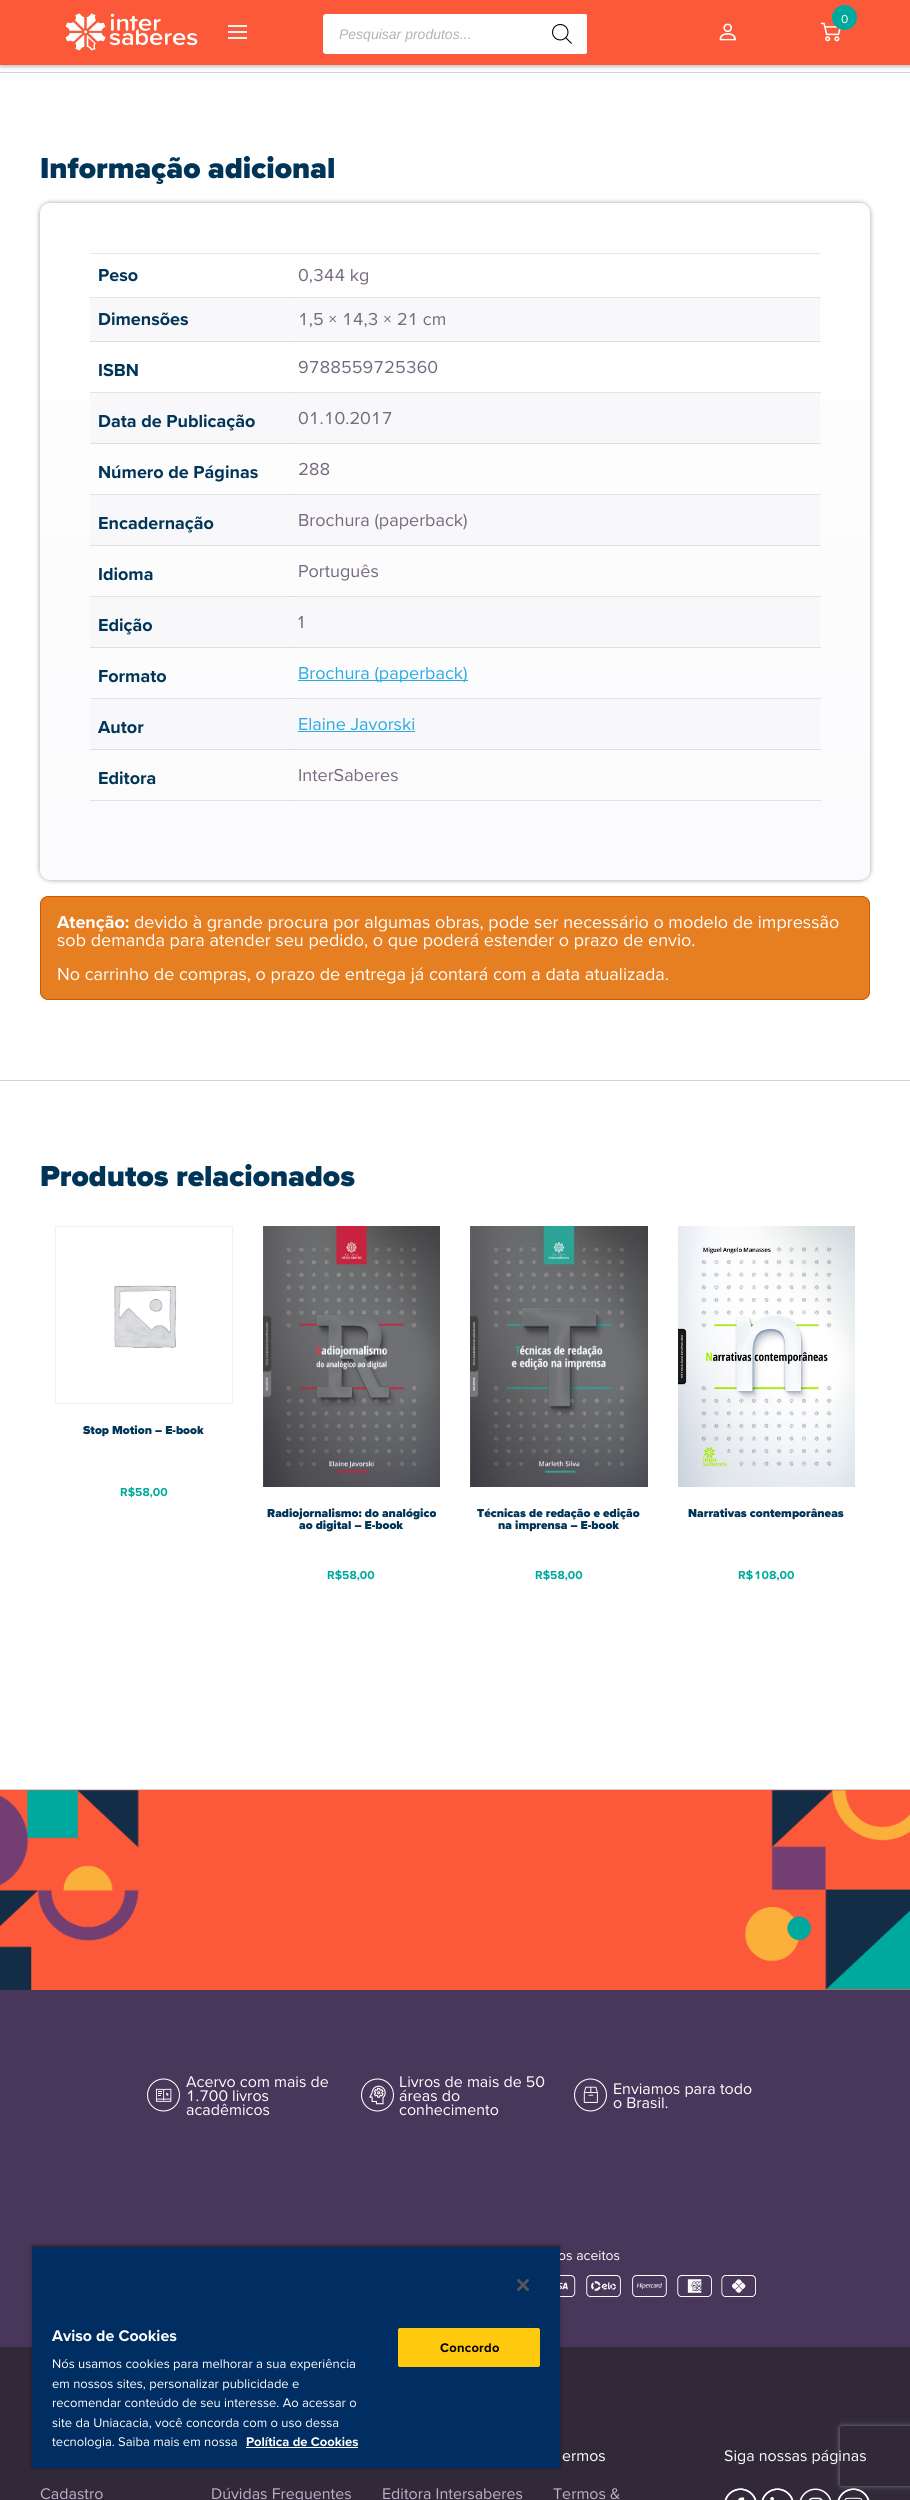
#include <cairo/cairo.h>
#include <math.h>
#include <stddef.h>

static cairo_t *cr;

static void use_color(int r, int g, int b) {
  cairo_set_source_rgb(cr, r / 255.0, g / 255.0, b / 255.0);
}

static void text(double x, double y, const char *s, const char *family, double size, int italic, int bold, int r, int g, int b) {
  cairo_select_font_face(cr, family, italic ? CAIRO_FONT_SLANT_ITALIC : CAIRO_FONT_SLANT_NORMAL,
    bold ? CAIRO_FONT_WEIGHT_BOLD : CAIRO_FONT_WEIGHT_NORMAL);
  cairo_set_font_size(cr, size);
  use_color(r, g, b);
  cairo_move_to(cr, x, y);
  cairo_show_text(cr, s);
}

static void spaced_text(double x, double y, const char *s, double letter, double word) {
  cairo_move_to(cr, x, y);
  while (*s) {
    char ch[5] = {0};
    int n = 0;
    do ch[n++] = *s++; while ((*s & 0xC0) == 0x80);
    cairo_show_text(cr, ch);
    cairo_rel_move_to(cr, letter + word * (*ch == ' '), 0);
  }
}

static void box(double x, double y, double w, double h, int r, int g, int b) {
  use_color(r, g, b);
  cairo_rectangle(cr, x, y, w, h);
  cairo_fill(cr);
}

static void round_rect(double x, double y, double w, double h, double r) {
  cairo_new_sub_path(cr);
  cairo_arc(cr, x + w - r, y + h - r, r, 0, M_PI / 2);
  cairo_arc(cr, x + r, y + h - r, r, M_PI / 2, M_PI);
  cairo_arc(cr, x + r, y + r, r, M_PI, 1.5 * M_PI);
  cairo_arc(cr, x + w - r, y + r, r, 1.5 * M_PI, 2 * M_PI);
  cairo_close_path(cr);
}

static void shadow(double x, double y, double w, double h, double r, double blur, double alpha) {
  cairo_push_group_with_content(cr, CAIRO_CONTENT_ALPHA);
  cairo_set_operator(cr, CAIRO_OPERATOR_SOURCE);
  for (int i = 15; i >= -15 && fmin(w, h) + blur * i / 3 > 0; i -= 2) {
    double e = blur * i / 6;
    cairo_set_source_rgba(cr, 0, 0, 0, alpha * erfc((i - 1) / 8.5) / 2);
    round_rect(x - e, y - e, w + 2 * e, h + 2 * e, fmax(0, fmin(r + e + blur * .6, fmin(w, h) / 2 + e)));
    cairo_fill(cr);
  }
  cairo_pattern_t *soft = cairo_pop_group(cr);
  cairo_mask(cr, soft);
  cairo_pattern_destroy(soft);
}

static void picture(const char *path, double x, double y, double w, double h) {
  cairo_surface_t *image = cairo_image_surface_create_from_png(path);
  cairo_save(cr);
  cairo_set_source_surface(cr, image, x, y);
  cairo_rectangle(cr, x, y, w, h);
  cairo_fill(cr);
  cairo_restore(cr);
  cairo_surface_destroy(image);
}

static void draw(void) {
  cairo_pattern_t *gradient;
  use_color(255, 255, 255);
  cairo_paint(cr);
  box(0, 72, 910, 1, 212, 206, 221);
  use_color(0, 0, 0);
  shadow(1, 1, 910, 65, 0, 2.5, 0.34);
  box(0, 0, 910, 65, 251, 89, 58);
  picture("img_01.png", 65, 13, 133, 38);
  box(228, 25, 19, 2, 244, 244, 244);
  box(228, 31, 19, 2, 244, 244, 244);
  box(228, 37, 19, 2, 244, 244, 244);
  picture("img_02.png", 820, 22, 21, 20);
  use_color(0, 169, 157);
  cairo_arc(cr, 844.5, 17.5, 12.5, 0, 2 * M_PI);
  cairo_fill(cr);
  picture("img_03.png", 719, 23, 17, 18);
  use_color(255, 255, 255);
  round_rect(323.5, 14.5, 263, 39, 2.5);
  cairo_fill_preserve(cr);
  cairo_set_line_width(cr, 1);
  cairo_stroke(cr);
  cairo_new_path(cr);
  cairo_move_to(cr, 537, 14);
  cairo_line_to(cr, 585, 14);
  cairo_curve_to(cr, 586, 14, 587, 15, 587, 16);
  cairo_line_to(cr, 587, 52);
  cairo_curve_to(cr, 587, 53, 586, 54, 585, 54);
  cairo_line_to(cr, 537, 54);
  cairo_close_path(cr);
  cairo_fill(cr);
  picture("img_04.png", 552, 24, 20, 20);
  box(0, 1080, 910, 1, 212, 206, 221);
  use_color(0, 0, 0);
  shadow(40, 203, 830, 677, 10, 2.5, 0.37);
  gradient = cairo_pattern_create_linear(455, 880, 455, 203);
  cairo_pattern_add_color_stop_rgba(gradient, 0, 0.984, 0.98, 0.988, 1);
  cairo_pattern_add_color_stop_rgba(gradient, 1, 1, 1, 1, 1);
  cairo_set_source(cr, gradient);
  cairo_pattern_destroy(gradient);
  round_rect(40, 203, 830, 677, 10);
  cairo_fill(cr);
  gradient = cairo_pattern_create_linear(455, 880, 455, 203);
  cairo_pattern_add_color_stop_rgba(gradient, 0, 0.886, 0.882, 0.89, 1);
  cairo_pattern_add_color_stop_rgba(gradient, 1, 0.902, 0.902, 0.902, 1);
  cairo_set_source(cr, gradient);
  cairo_pattern_destroy(gradient);
  cairo_rectangle(cr, 90, 297, 201, 1);
  cairo_fill(cr);
  cairo_rectangle(cr, 820, 341, 1, 1);
  cairo_fill(cr);
  cairo_rectangle(cr, 90, 392, 201, 1);
  cairo_fill(cr);
  cairo_rectangle(cr, 820, 443, 1, 1);
  cairo_fill(cr);
  cairo_rectangle(cr, 90, 494, 201, 1);
  cairo_fill(cr);
  cairo_rectangle(cr, 820, 545, 1, 1);
  cairo_fill(cr);
  cairo_rectangle(cr, 90, 596, 201, 1);
  cairo_fill(cr);
  cairo_rectangle(cr, 820, 647, 1, 1);
  cairo_fill(cr);
  cairo_rectangle(cr, 90, 698, 201, 1);
  cairo_fill(cr);
  cairo_rectangle(cr, 820, 749, 1, 1);
  cairo_fill(cr);
  cairo_rectangle(cr, 90, 800, 201, 1);
  cairo_fill(cr);
  box(90, 253, 730, 1, 230, 230, 230);
  box(290, 297, 531, 1, 229, 229, 230);
  box(290, 297, 1, 1, 206, 206, 207);
  box(90, 298, 730, 43, 248, 247, 249);
  box(90, 341, 730, 1, 223, 222, 224);
  box(290, 341, 1, 1, 201, 200, 202);
  box(290, 392, 531, 1, 229, 229, 229);
  box(290, 392, 1, 1, 206, 206, 206);
  box(90, 393, 730, 50, 248, 247, 249);
  box(90, 443, 730, 1, 223, 222, 224);
  box(290, 443, 1, 1, 201, 200, 202);
  box(290, 494, 531, 1, 228, 228, 229);
  box(290, 494, 1, 1, 205, 205, 206);
  box(90, 495, 730, 50, 248, 247, 249);
  box(90, 545, 730, 1, 223, 222, 224);
  box(290, 545, 1, 1, 201, 200, 202);
  box(290, 596, 531, 1, 228, 227, 228);
  box(290, 596, 1, 1, 205, 204, 205);
  box(90, 597, 730, 50, 248, 247, 249);
  box(90, 647, 730, 1, 223, 222, 224);
  box(290, 647, 1, 1, 201, 200, 202);
  box(290, 698, 531, 1, 227, 226, 228);
  box(290, 698, 1, 1, 204, 203, 205);
  box(298, 680, 170, 1, 41, 171, 226);
  box(90, 699, 730, 50, 248, 247, 249);
  box(90, 749, 730, 1, 223, 222, 224);
  box(290, 749, 1, 1, 201, 200, 202);
  box(298, 731, 117, 1, 41, 171, 226);
  box(290, 800, 531, 1, 226, 226, 227);
  box(290, 800, 1, 1, 203, 203, 204);
  use_color(230, 126, 34);
  round_rect(40.5, 896.5, 829, 103, 7.5);
  cairo_fill_preserve(cr);
  use_color(211, 84, 0);
  cairo_stroke(cr);
  box(0, 1789, 910, 1, 212, 206, 221);
  cairo_rectangle(cr, 55.5, 1226.5, 177, 177);
  use_color(242, 242, 242);
  cairo_stroke(cr);
  picture("img_05.png", 114, 1285, 63, 63);
  picture("img_06.png", 263, 1226, 177, 261);
  picture("img_07.png", 470, 1226, 178, 261);
  picture("img_08.png", 678, 1226, 177, 261);
  picture("img_09.png", 0, 1790, 910, 200);
  box(0, 1990, 910, 357, 73, 55, 91);
  picture("img_10.png", 147, 2078, 33, 34);
  picture("img_11.png", 361, 2078, 33, 34);
  picture("img_12.png", 574, 2078, 33, 34);
  picture("img_13.png", 560, 2275, 196, 22);
  box(0, 2347, 910, 153, 49, 41, 58);
  use_color(0, 0, 0);
  shadow(32, 2245, 528, 223, 0, 2, 0.35);
  cairo_save(cr);
  cairo_rectangle(cr, 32, 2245, 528, 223);
  cairo_clip(cr);
  shadow(32, 2247, 528, 221, 0, 2, 0.2);
  cairo_restore(cr);
  picture("img_17.png", 799, 2488, 33, 12);
  picture("img_18.png", 837, 2488, 33, 12);
  cairo_save(cr);
  cairo_set_fill_rule(cr, CAIRO_FILL_RULE_EVEN_ODD);
  cairo_new_path(cr);
  cairo_move_to(cr, 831, 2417);
  cairo_line_to(cr, 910, 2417);
  cairo_line_to(cr, 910, 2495);
  cairo_line_to(cr, 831, 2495);
  cairo_close_path(cr);
  cairo_move_to(cr, 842, 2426);
  cairo_line_to(cr, 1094, 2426);
  cairo_curve_to(cr, 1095, 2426, 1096, 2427, 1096, 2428);
  cairo_line_to(cr, 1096, 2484);
  cairo_curve_to(cr, 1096, 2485, 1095, 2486, 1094, 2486);
  cairo_line_to(cr, 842, 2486);
  cairo_curve_to(cr, 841, 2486, 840, 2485, 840, 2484);
  cairo_line_to(cr, 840, 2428);
  cairo_curve_to(cr, 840, 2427, 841, 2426, 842, 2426);
  cairo_close_path(cr);
  cairo_clip(cr);
  use_color(128, 128, 128);
  shadow(840, 2426, 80, 60, 2, 2.5, 1);
  cairo_restore(cr);
  picture("img_15.png", 724, 2488, 33, 12);
  picture("img_16.png", 761, 2488, 33, 12);
  text(841, 23, "0", "Proxima Nova", 12, 0, 0, 255, 255, 255);
  text(339, 39, "Pesquisar produtos...", "Liberation Sans", 14, 1, 0, 179, 179, 179);
  text(40, 178, "Informação adicional", "Proxima Nova Black", 30, 0, 0, 0, 53, 88);
  text(98, 281, "Peso", "Proxima Nova", 18, 0, 1, 0, 53, 88);
  text(298, 281, "0,344 kg", "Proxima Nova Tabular", 18, 0, 0, 118, 105, 128);
  text(98, 325, "Dimensões", "Proxima Nova", 18, 0, 1, 0, 53, 88);
  text(298, 325, "1,5 × 14,3 × 21 cm", "Proxima Nova Tabular", 18, 0, 0, 118, 105, 128);
  text(98, 376, "ISBN", "Proxima Nova", 18, 0, 1, 0, 53, 88);
  text(298, 373, "9788559725360", "Proxima Nova Tabular", 18, 0, 0, 118, 105, 128);
  text(98, 427, "Data de Publicação", "Proxima Nova", 18, 0, 1, 0, 53, 88);
  text(298, 424, "01.10.2017", "Proxima Nova Tabular", 18, 0, 0, 118, 105, 128);
  text(98, 478, "Número de Páginas", "Proxima Nova", 18, 0, 1, 0, 53, 88);
  text(298, 475, "288", "Proxima Nova Tabular", 18, 0, 0, 118, 105, 128);
  text(98, 529, "Encadernação", "Proxima Nova", 18, 0, 1, 0, 53, 88);
  text(298, 526, "Brochura (paperback)", "Proxima Nova", 18, 0, 0, 118, 105, 128);
  text(98, 580, "Idioma", "Proxima Nova", 18, 0, 1, 0, 53, 88);
  text(298, 577, "Português", "Proxima Nova", 18, 0, 0, 118, 105, 128);
  text(98, 631, "Edição", "Proxima Nova", 18, 0, 1, 0, 53, 88);
  text(298, 628, "1", "Proxima Nova", 18, 0, 0, 118, 105, 128);
  text(98, 682, "Formato", "Proxima Nova", 18, 0, 1, 0, 53, 88);
  text(298, 679, "Brochura (paperback)", "Proxima Nova", 18, 0, 0, 41, 171, 226);
  text(98, 733, "Autor", "Proxima Nova", 18, 0, 1, 0, 53, 88);
  text(298, 730, "Elaine Javorski", "Proxima Nova", 18, 0, 0, 41, 171, 226);
  text(98, 784, "Editora", "Proxima Nova", 18, 0, 1, 0, 53, 88);
  text(298, 781, "InterSaberes", "Proxima Nova", 18, 0, 0, 118, 105, 128);
  text(57, 928, "Atenção:", "Proxima Nova", 18, 0, 1, 255, 255, 255);
  text(134, 928, "devido à grande procura por algumas obras, pode ser necessário o modelo de impressão", "Proxima Nova", 18, 0, 0, 255, 255, 255);
  text(57, 946, "sob demanda para atender seu pedido, o que poderá estender o prazo de envio.", "Proxima Nova", 18, 0, 0, 255, 255, 255);
  text(57, 980, "No carrinho de compras, o prazo de entrega já contará com a data atualizada.", "Proxima Nova", 18, 0, 0, 255, 255, 255);
  text(40, 1186, "Produtos relacionados", "Proxima Nova Black", 30, 0, 0, 0, 53, 88);
  text(83, 1434, "Stop Motion – E-book", "Proxima Nova Black", 12, 0, 0, 0, 53, 88);
  text(120, 1496, "R$58,00", "Proxima Nova", 12, 0, 1, 1, 169, 157);
  text(267, 1517, "Radiojornalismo: do analógico", "Proxima Nova Black", 12, 0, 0, 0, 53, 88);
  text(299, 1529, "ao digital – E-book", "Proxima Nova Black", 12, 0, 0, 0, 53, 88);
  text(327, 1579, "R$58,00", "Proxima Nova", 12, 0, 1, 1, 169, 157);
  text(477, 1517, "Técnicas de redação e edição", "Proxima Nova Black", 12, 0, 0, 0, 53, 88);
  text(498, 1529, "na imprensa – E-book", "Proxima Nova Black", 12, 0, 0, 0, 53, 88);
  text(535, 1579, "R$58,00", "Proxima Nova", 12, 0, 1, 1, 169, 157);
  text(688, 1517, "Narrativas contemporâneas", "Proxima Nova Black", 12, 0, 0, 0, 53, 88);
  text(738, 1579, "R$", "Proxima Nova", 12, 0, 1, 1, 169, 157);
  text(754, 1579, "108,00", "Proxima Nova Tabular", 12, 0, 1, 1, 169, 157);
  text(186, 2087, "Acervo com mais de", "Proxima Nova", 16, 0, 0, 255, 255, 255);
  text(186, 2101, "1.700 livros", "Proxima Nova Tabular", 16, 0, 0, 255, 255, 255);
  text(186, 2115, "acadêmicos", "Proxima Nova", 16, 0, 0, 255, 255, 255);
  text(399, 2087, "Livros de mais de 50", "Proxima Nova", 16, 0, 0, 255, 255, 255);
  text(399, 2101, "áreas do", "Proxima Nova", 16, 0, 0, 255, 255, 255);
  text(399, 2115, "conhecimento", "Proxima Nova", 16, 0, 0, 255, 255, 255);
  text(613, 2094, "Enviamos para todo", "Proxima Nova", 16, 0, 0, 255, 255, 255);
  text(613, 2108, "o Brasil.", "Proxima Nova", 16, 0, 0, 255, 255, 255);
  text(558, 2260, "os aceitos", "Proxima Nova", 14, 0, 0, 255, 255, 255);
  box(32, 2247, 528, 221, 0, 45, 98);
  picture("img_14.png", 517, 2279, 12, 12);
  text(52, 2341, "Aviso de Cookies", "Proxima Nova", 16, 0, 1, 255, 255, 255);
  text(52, 2368, "Nós usamos cookies para melhorar a sua experiência", "Proxima Nova", 13, 0, 0, 255, 255, 255);
  text(52, 2388, "em nossos sites, personalizar publicidade e", "Proxima Nova", 13, 0, 0, 255, 255, 255);
  text(52, 2407, "recomendar conteúdo de seu interesse. Ao acessar o", "Proxima Nova", 13, 0, 0, 255, 255, 255);
  text(52, 2427, "site da Uniacacia, você concorda com o uso dessa", "Proxima Nova", 13, 0, 0, 255, 255, 255);
  text(52, 2446, "tecnologia. Saiba mais em nossa", "Proxima Nova", 13, 0, 0, 255, 255, 255);
  text(246, 2446, "Política de Cookies", "Proxima Nova", 13, 0, 1, 255, 255, 255);
  box(246, 2447, 112, 1, 255, 255, 255);
  use_color(255, 201, 14);
  round_rect(398.5, 2328.5, 141, 38, 1.5);
  cairo_fill_preserve(cr);
  cairo_stroke(cr);
  use_color(0, 0, 0);
  spaced_text(440, 2352, "Concordo", 0.25, 0);
  text(40, 2499, "Cadastro", "Proxima Nova", 16, 0, 0, 187, 177, 201);
  text(211, 2499, "Dúvidas Frequentes", "Proxima Nova", 16, 0, 0, 187, 177, 201);
  text(382, 2499, "Editora Intersaberes", "Proxima Nova", 16, 0, 0, 187, 177, 201);
  text(562, 2461, "ermos", "Proxima Nova", 16, 0, 0, 255, 255, 255);
  text(553, 2499, "Termos &", "Proxima Nova", 16, 0, 0, 187, 177, 201);
  text(724, 2461, "Siga nossas páginas", "Proxima Nova", 16, 0, 0, 255, 255, 255);
}

int main(void) {
  cairo_surface_t *surface = cairo_image_surface_create(CAIRO_FORMAT_RGB24, 910, 2500);
  cr = cairo_create(surface);
  cairo_font_options_t *options = cairo_font_options_create();
  cairo_font_options_set_hint_metrics(options, CAIRO_HINT_METRICS_OFF);
  cairo_font_options_set_hint_style(options, CAIRO_HINT_STYLE_NONE);
  cairo_set_font_options(cr, options);
  cairo_set_miter_limit(cr, 4);
  draw();
  cairo_surface_write_to_png(surface, "out.png");
  cairo_font_options_destroy(options);
  cairo_destroy(cr);
  cairo_surface_destroy(surface);
  return 0;
}
